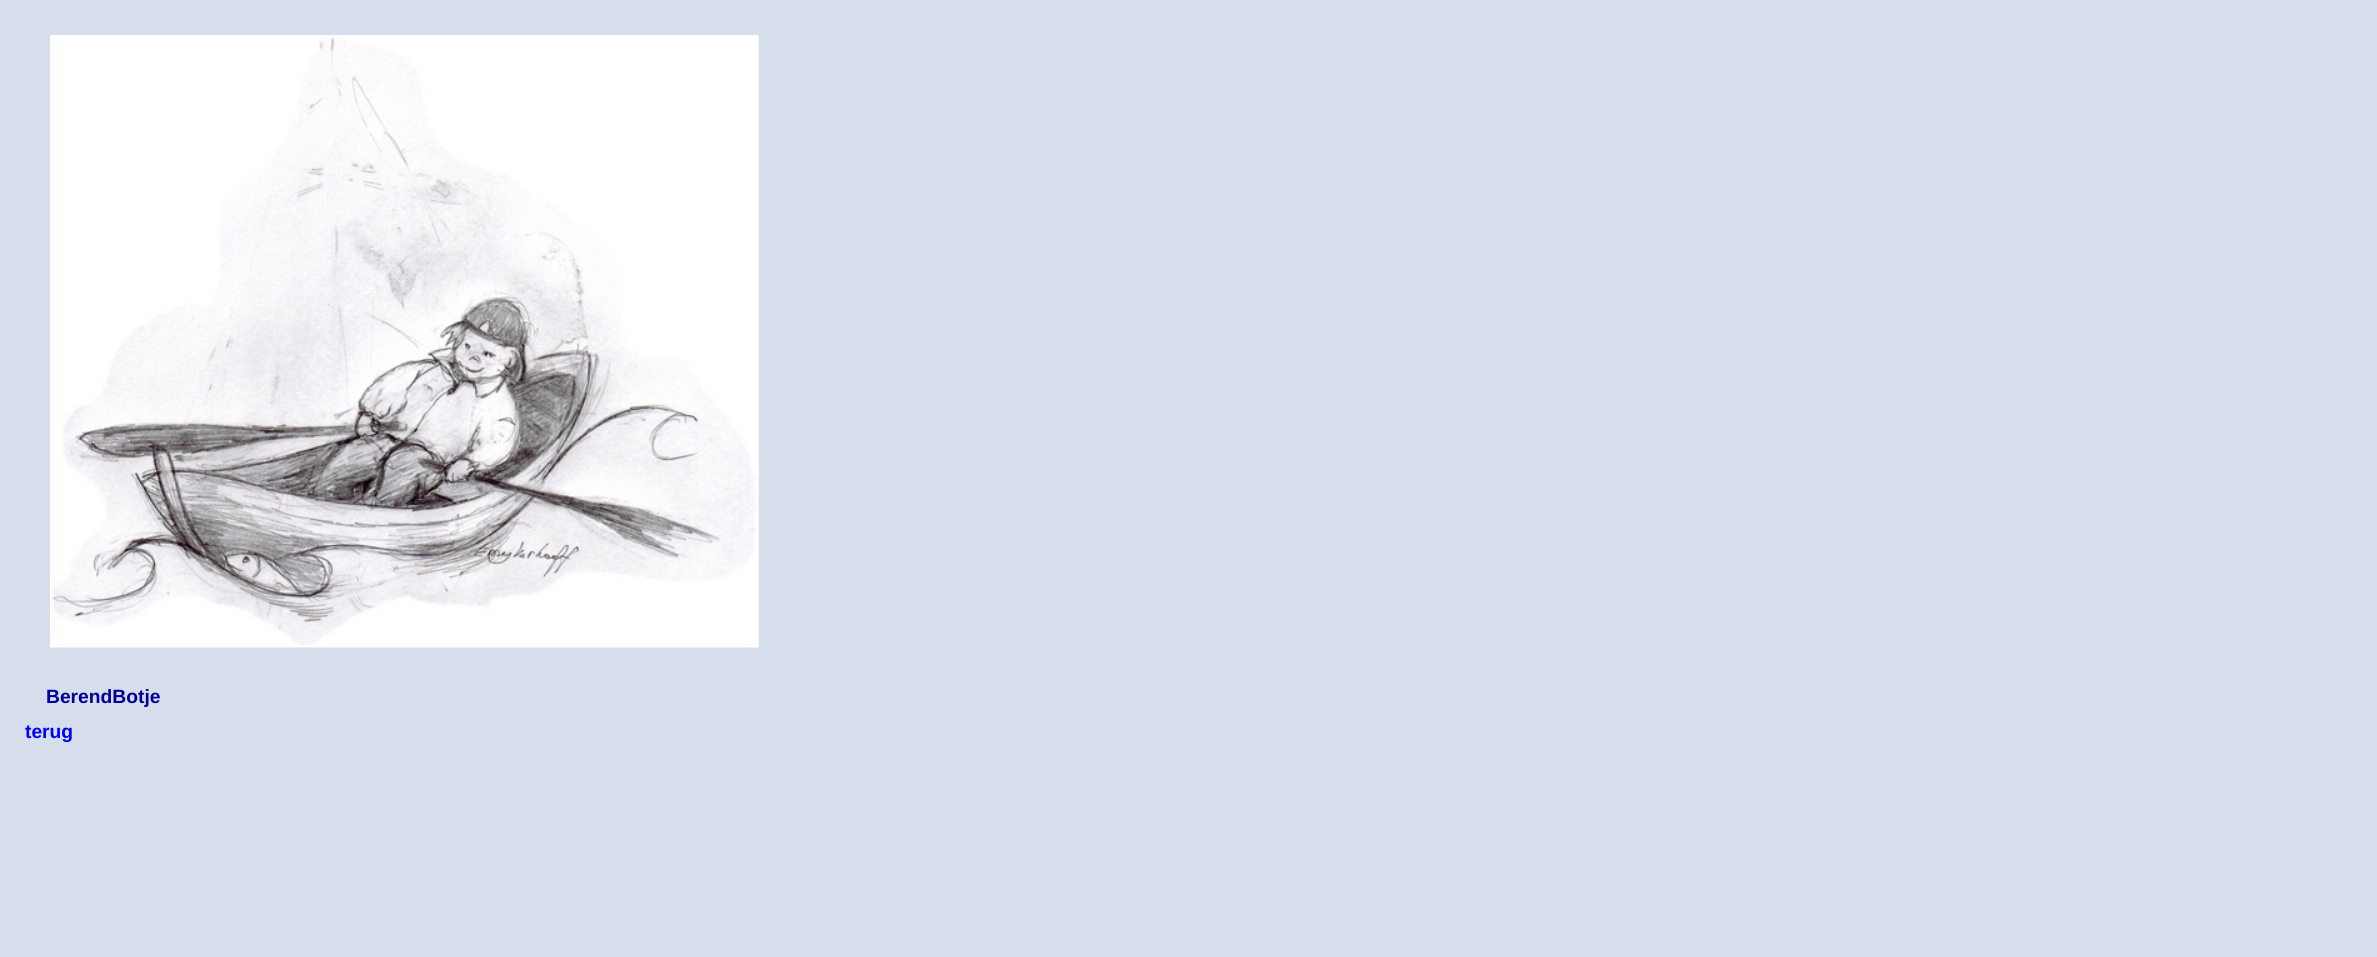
#include <cairo/cairo.h>
#include <math.h>
#include <stddef.h>

static cairo_t *cr;

static void use_color(int r, int g, int b) {
  cairo_set_source_rgb(cr, r / 255.0, g / 255.0, b / 255.0);
}

static void text(double x, double y, const char *s, const char *family, double size, int italic, int bold, int r, int g, int b) {
  cairo_select_font_face(cr, family, italic ? CAIRO_FONT_SLANT_ITALIC : CAIRO_FONT_SLANT_NORMAL,
    bold ? CAIRO_FONT_WEIGHT_BOLD : CAIRO_FONT_WEIGHT_NORMAL);
  cairo_set_font_size(cr, size);
  use_color(r, g, b);
  cairo_move_to(cr, x, y);
  cairo_show_text(cr, s);
}

static void picture(const char *path, double x, double y, double w, double h) {
  cairo_surface_t *image = cairo_image_surface_create_from_png(path);
  cairo_save(cr);
  cairo_set_source_surface(cr, image, x, y);
  cairo_rectangle(cr, x, y, w, h);
  cairo_fill(cr);
  cairo_restore(cr);
  cairo_surface_destroy(image);
}

static void draw(void) {
  use_color(214, 222, 235);
  cairo_paint(cr);
  picture("img_01.png", 50, 35, 709, 613);
  text(46, 703, "BerendBotje", "Liberation Sans", 19.25, 0, 1, 0, 0, 153);
  text(25, 738, "terug", "Liberation Sans", 19.25, 0, 1, 0, 0, 255);
}

int main(void) {
  cairo_surface_t *surface = cairo_image_surface_create(CAIRO_FORMAT_RGB24, 2377, 957);
  cr = cairo_create(surface);
  cairo_font_options_t *options = cairo_font_options_create();
  cairo_font_options_set_hint_metrics(options, CAIRO_HINT_METRICS_OFF);
  cairo_font_options_set_hint_style(options, CAIRO_HINT_STYLE_NONE);
  cairo_set_font_options(cr, options);
  cairo_set_miter_limit(cr, 4);
  draw();
  cairo_surface_write_to_png(surface, "out.png");
  cairo_font_options_destroy(options);
  cairo_destroy(cr);
  cairo_surface_destroy(surface);
  return 0;
}
